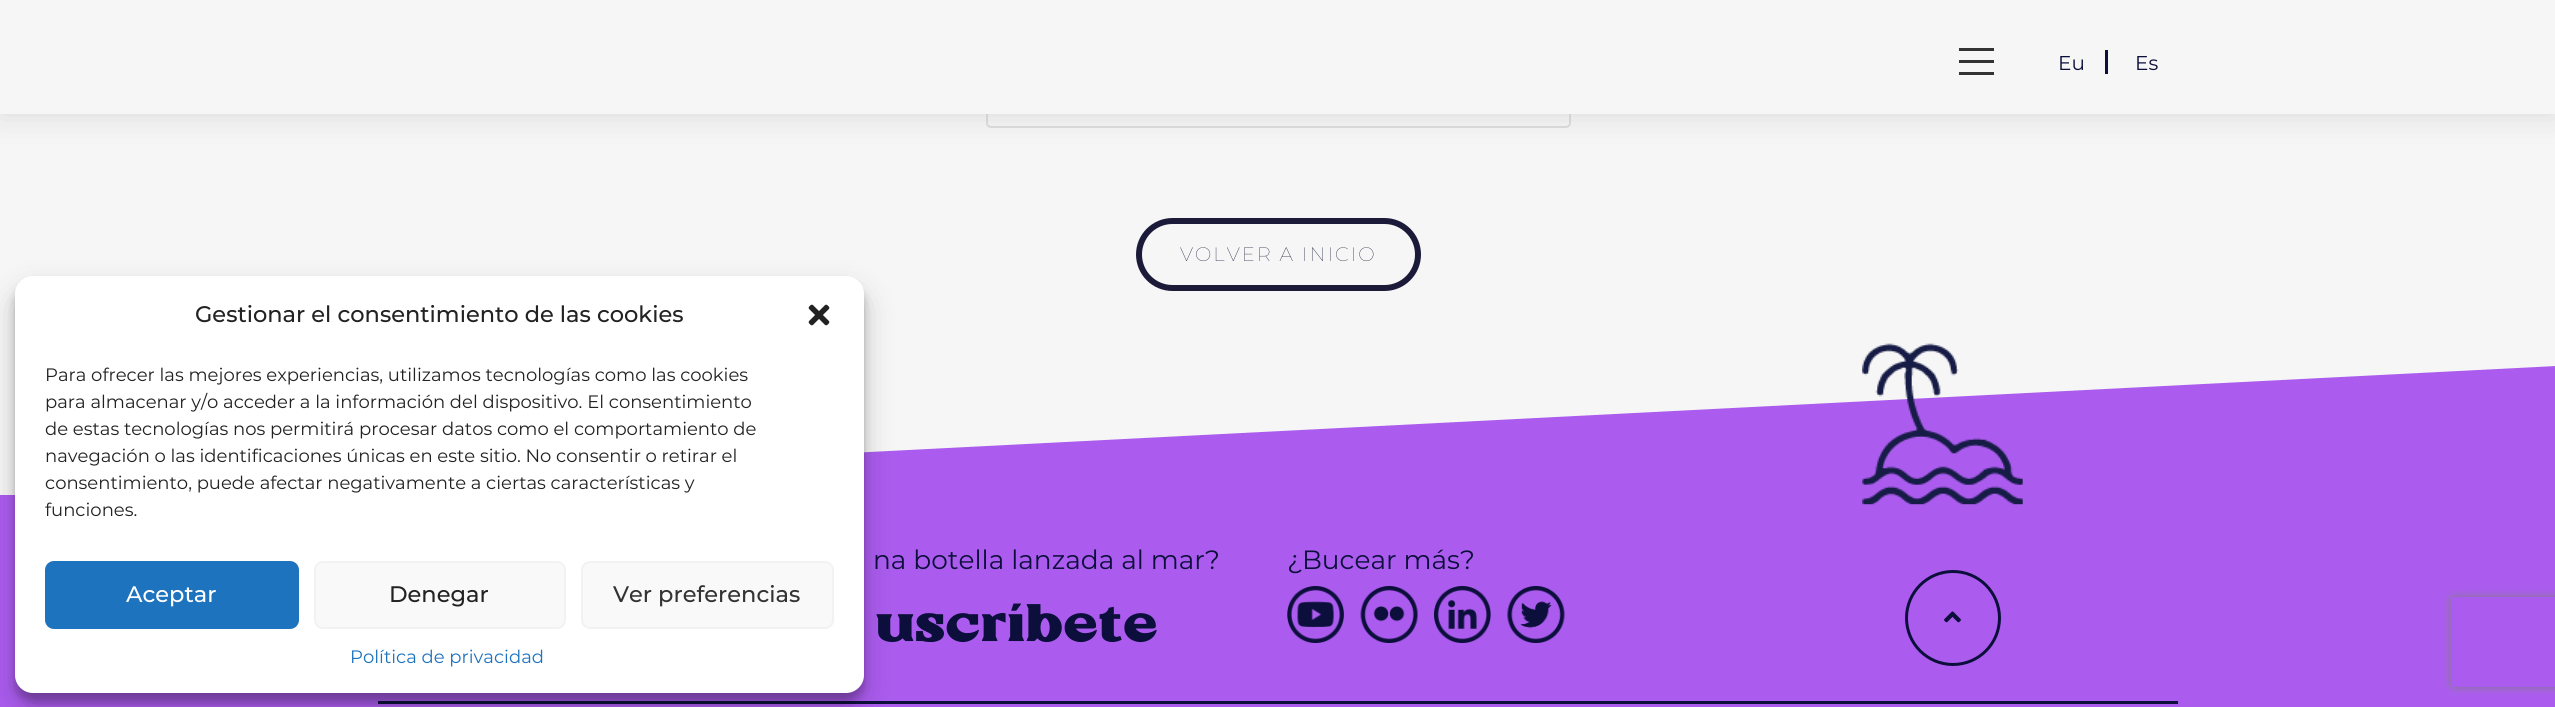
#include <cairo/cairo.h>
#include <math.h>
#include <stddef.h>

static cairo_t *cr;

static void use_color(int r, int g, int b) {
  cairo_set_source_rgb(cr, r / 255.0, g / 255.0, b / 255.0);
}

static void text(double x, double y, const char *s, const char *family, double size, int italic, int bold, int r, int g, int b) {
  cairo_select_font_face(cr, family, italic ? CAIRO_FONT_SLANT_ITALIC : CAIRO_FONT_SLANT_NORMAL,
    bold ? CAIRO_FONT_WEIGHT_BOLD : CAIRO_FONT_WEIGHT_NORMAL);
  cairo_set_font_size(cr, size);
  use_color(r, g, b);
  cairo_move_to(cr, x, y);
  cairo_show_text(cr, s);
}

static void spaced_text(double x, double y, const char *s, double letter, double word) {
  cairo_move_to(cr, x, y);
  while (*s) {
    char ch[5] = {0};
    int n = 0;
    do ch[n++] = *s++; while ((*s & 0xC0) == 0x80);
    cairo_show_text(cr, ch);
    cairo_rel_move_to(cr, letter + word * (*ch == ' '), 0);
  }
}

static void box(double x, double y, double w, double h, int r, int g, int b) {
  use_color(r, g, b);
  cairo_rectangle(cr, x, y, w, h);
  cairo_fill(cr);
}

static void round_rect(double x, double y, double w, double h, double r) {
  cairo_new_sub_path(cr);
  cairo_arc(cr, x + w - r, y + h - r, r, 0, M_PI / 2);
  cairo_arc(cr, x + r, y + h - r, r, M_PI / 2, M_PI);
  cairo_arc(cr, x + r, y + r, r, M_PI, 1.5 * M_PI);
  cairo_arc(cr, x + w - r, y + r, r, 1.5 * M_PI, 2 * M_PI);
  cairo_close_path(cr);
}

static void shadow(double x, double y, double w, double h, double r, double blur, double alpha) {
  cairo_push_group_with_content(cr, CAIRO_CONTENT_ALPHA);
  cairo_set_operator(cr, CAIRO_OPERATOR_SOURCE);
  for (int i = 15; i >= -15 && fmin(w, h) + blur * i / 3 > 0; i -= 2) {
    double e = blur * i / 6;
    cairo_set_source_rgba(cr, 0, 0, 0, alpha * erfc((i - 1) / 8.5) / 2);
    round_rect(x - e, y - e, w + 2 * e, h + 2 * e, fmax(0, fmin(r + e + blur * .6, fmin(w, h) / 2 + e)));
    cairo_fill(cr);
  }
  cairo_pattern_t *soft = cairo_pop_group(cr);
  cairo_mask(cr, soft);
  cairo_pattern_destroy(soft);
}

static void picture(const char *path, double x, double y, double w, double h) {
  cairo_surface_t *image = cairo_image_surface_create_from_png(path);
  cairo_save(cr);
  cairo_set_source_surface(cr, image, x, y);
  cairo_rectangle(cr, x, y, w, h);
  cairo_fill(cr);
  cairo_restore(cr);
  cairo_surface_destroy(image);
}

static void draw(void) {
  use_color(246, 246, 246);
  cairo_paint(cr);
  use_color(171, 92, 238);
  cairo_new_path(cr);
  cairo_move_to(cr, 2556, 366);
  cairo_line_to(cr, 25, 495);
  cairo_line_to(cr, 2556, 495);
  cairo_close_path(cr);
  cairo_fill(cr);
  box(0, 495, 2555, 212, 171, 92, 238);
  box(378, 701, 1800, 3, 12, 15, 60);
  use_color(0, 0, 0);
  shadow(15, 285, 849, 417, 18, 4.5, 0.23);
  shadow(15, 291, 849, 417, 18, 15, 0.19);
  use_color(255, 255, 255);
  round_rect(15, 276, 849, 417, 18);
  cairo_fill(cr);
  picture("img_01.png", 808, 304, 22, 22);
  use_color(30, 115, 190);
  round_rect(46, 562, 252, 66, 8);
  cairo_fill_preserve(cr);
  cairo_stroke(cr);
  use_color(249, 249, 249);
  round_rect(315, 562, 250, 66, 8);
  cairo_fill_preserve(cr);
  use_color(242, 242, 242);
  cairo_stroke(cr);
  use_color(249, 249, 249);
  round_rect(582, 562, 251, 66, 8);
  cairo_fill_preserve(cr);
  use_color(242, 242, 242);
  cairo_stroke(cr);
  round_rect(987, 69, 583, 58, 4);
  use_color(221, 221, 221);
  cairo_stroke(cr);
  use_color(134, 132, 132);
  shadow(0, 0, 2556, 114, 0, 16.5, 0.27);
  box(0, 0, 2555, 114, 246, 246, 246);
  box(1959, 60, 35, 3, 51, 51, 51);
  box(1959, 48, 35, 3, 51, 51, 51);
  box(1959, 72, 35, 3, 51, 51, 51);
  box(2105, 50, 3, 24, 12, 15, 60);
  round_rect(1139, 221, 279, 67, 33.5);
  use_color(27, 27, 57);
  cairo_set_line_width(cr, 6);
  cairo_stroke(cr);
  picture("img_02.png", 1287, 586, 57, 57);
  picture("img_03.png", 1360, 586, 58, 57);
  picture("img_04.png", 1434, 586, 57, 57);
  picture("img_05.png", 1507, 586, 58, 57);
  picture("img_06.png", 1862, 343, 161, 162);
  cairo_arc(cr, 1953, 618, 46.5, 0, 2 * M_PI);
  use_color(12, 15, 60);
  cairo_set_line_width(cr, 3);
  cairo_stroke(cr);
  picture("img_07.png", 1944, 611, 17, 12);
  cairo_save(cr);
  cairo_set_fill_rule(cr, CAIRO_FILL_RULE_EVEN_ODD);
  cairo_new_path(cr);
  cairo_move_to(cr, 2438, 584);
  cairo_line_to(cr, 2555, 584);
  cairo_line_to(cr, 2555, 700);
  cairo_line_to(cr, 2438, 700);
  cairo_close_path(cr);
  cairo_move_to(cr, 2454, 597);
  cairo_line_to(cr, 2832, 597);
  cairo_curve_to(cr, 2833.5, 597, 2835, 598.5, 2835, 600);
  cairo_line_to(cr, 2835, 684);
  cairo_curve_to(cr, 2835, 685.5, 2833.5, 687, 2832, 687);
  cairo_line_to(cr, 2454, 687);
  cairo_curve_to(cr, 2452.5, 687, 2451, 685.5, 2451, 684);
  cairo_line_to(cr, 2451, 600);
  cairo_curve_to(cr, 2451, 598.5, 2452.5, 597, 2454, 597);
  cairo_close_path(cr);
  cairo_clip(cr);
  use_color(128, 128, 128);
  shadow(2451, 597, 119, 90, 3, 4, 1);
  cairo_restore(cr);
  text(195, 322, "Gestionar el consentimiento de las cookies", "Montserrat Medium", 22.5, 0, 0, 34, 34, 34);
  text(45, 381, "Para ofrecer las mejores experiencias, utilizamos tecnologías como las cookies", "Montserrat", 18, 0, 0, 34, 34, 34);
  text(45, 408, "para almacenar y/o acceder a la información del dispositivo. El consentimiento", "Montserrat", 18, 0, 0, 34, 34, 34);
  text(45, 435, "de estas tecnologías nos permitirá procesar datos como el comportamiento de", "Montserrat", 18, 0, 0, 34, 34, 34);
  text(45, 462, "navegación o las identificaciones únicas en este sitio. No consentir o retirar el", "Montserrat", 18, 0, 0, 34, 34, 34);
  text(45, 489, "consentimiento, puede afectar negativamente a ciertas características y", "Montserrat", 18, 0, 0, 34, 34, 34);
  text(45, 516, "funciones.", "Montserrat", 18, 0, 0, 34, 34, 34);
  text(126, 602, "Aceptar", "Montserrat Medium", 22.5, 0, 0, 255, 255, 255);
  text(389, 602, "Denegar", "Montserrat Medium", 22.5, 0, 0, 34, 34, 34);
  text(613, 602, "Ver preferencias", "Montserrat Medium", 22.5, 0, 0, 51, 51, 51);
  text(350, 663, "Política de privacidad", "Montserrat", 18, 0, 0, 30, 115, 190);
  text(2058, 70, "Eu", "Montserrat", 20, 0, 0, 12, 15, 60);
  text(2135, 70, "Es", "Montserrat", 20, 0, 0, 12, 15, 60);
  cairo_select_font_face(cr, "Montserrat Thin", CAIRO_FONT_SLANT_NORMAL, CAIRO_FONT_WEIGHT_NORMAL);
  cairo_set_font_size(cr, 19.5);
  use_color(27, 27, 57);
  spaced_text(1180, 261, "VOLVER A INICIO", 2, 0);
  text(873, 569, "na botella lanzada al mar?", "Montserrat", 26.4, 0, 0, 12, 15, 60);
  text(875, 641, "uscríbete", "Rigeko", 52.75, 0, 0, 12, 15, 60);
  text(1287, 569, "¿Bucear más?", "Montserrat", 26.4, 0, 0, 12, 15, 60);
}

int main(void) {
  cairo_surface_t *surface = cairo_image_surface_create(CAIRO_FORMAT_RGB24, 2555, 707);
  cr = cairo_create(surface);
  cairo_font_options_t *options = cairo_font_options_create();
  cairo_font_options_set_hint_metrics(options, CAIRO_HINT_METRICS_OFF);
  cairo_font_options_set_hint_style(options, CAIRO_HINT_STYLE_NONE);
  cairo_set_font_options(cr, options);
  cairo_set_miter_limit(cr, 4);
  draw();
  cairo_surface_write_to_png(surface, "out.png");
  cairo_font_options_destroy(options);
  cairo_destroy(cr);
  cairo_surface_destroy(surface);
  return 0;
}
